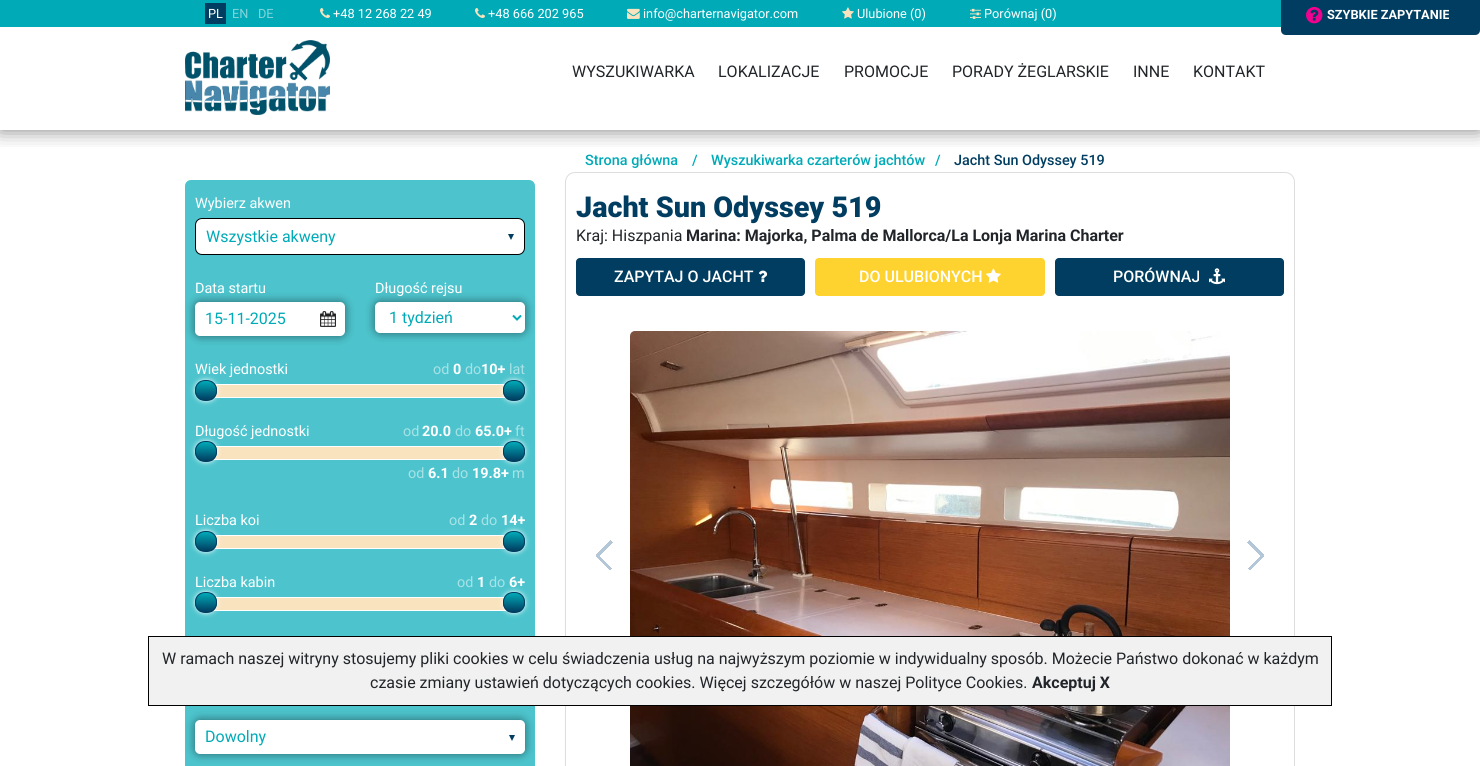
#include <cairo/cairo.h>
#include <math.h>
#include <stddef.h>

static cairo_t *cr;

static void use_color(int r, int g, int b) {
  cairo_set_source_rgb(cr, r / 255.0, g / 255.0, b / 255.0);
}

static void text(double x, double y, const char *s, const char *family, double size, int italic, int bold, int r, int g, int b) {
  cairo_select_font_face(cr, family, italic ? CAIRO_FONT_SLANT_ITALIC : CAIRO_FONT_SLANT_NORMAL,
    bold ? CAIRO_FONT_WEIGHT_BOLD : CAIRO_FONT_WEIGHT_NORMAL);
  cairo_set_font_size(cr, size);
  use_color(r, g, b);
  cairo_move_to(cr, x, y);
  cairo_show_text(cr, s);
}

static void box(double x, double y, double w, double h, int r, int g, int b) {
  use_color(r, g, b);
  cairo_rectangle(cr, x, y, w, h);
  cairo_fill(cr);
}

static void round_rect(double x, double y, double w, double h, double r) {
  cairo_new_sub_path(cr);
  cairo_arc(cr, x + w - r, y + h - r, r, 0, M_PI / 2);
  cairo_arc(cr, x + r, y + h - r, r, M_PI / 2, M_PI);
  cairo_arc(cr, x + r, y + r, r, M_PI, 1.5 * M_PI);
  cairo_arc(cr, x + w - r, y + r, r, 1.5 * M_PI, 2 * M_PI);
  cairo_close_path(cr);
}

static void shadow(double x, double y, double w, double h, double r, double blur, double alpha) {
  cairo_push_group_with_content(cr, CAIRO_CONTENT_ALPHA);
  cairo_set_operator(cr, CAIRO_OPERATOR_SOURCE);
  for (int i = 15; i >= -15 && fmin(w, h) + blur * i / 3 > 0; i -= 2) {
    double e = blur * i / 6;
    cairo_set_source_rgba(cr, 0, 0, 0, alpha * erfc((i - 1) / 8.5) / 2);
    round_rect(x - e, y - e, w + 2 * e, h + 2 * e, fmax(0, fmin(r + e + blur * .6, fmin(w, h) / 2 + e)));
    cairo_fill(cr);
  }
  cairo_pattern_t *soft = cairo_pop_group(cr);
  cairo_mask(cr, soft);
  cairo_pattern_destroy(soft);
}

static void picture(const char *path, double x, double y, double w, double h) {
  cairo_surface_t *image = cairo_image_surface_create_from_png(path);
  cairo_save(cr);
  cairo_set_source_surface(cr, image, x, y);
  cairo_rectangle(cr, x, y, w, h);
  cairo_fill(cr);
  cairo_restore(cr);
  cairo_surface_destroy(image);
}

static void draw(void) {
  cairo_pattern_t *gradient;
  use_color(255, 255, 255);
  cairo_paint(cr);
  cairo_save(cr);
  cairo_rectangle(cr, 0, 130, 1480, 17);
  cairo_clip(cr);
  use_color(0, 0, 0);
  shadow(0, 0, 1480, 130, 0, 10, 0.5);
  cairo_restore(cr);
  box(0, 0, 1281, 27, 0, 170, 183);
  box(205, 3, 21, 21, 0, 61, 96);
  picture("img_01.png", 320, 8, 10, 10);
  picture("img_01.png", 475, 8, 10, 10);
  picture("img_02.png", 627, 8, 13, 11);
  picture("img_03.png", 842, 7, 12, 12);
  picture("img_04.png", 970, 8, 11, 11);
  cairo_new_path(cr);
  cairo_move_to(cr, 1281, -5);
  cairo_line_to(cr, 1480, -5);
  cairo_line_to(cr, 1480, 30);
  cairo_curve_to(cr, 1480, 33, 1478, 35, 1475, 35);
  cairo_line_to(cr, 1286, 35);
  cairo_curve_to(cr, 1283, 35, 1281, 33, 1281, 30);
  cairo_close_path(cr);
  cairo_fill(cr);
  picture("img_05.png", 1306, 6, 17, 18);
  picture("img_06.png", 185, 40, 145, 75);
  use_color(77, 196, 205);
  round_rect(185, 180, 350, 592, 6);
  cairo_fill(cr);
  use_color(255, 255, 255);
  round_rect(195.5, 218.5, 329, 36, 6.5);
  cairo_fill_preserve(cr);
  use_color(0, 0, 0);
  cairo_set_line_width(cr, 1);
  cairo_stroke(cr);
  picture("img_07.png", 508, 234, 6, 6);
  use_color(0, 0, 0);
  shadow(195, 302, 150, 34, 5, 5, 0.5);
  use_color(255, 255, 255);
  round_rect(195, 302, 150, 34, 5);
  cairo_fill(cr);
  picture("img_08.png", 320, 311, 16, 16);
  use_color(0, 0, 0);
  shadow(375, 302, 150, 31, 5, 5, 0.5);
  use_color(255, 255, 255);
  round_rect(375, 302, 150, 31, 5);
  cairo_fill(cr);
  cairo_new_path(cr);
  cairo_move_to(cr, 513, 315.5);
  cairo_line_to(cr, 517, 319.5);
  cairo_line_to(cr, 521, 315.5);
  use_color(0, 170, 183);
  cairo_set_line_width(cr, 2);
  cairo_stroke(cr);
  cairo_rectangle(cr, 205.5, 384.5, 309, 13);
  use_color(255, 255, 255);
  cairo_set_line_width(cr, 1);
  cairo_stroke(cr);
  box(215, 385, 290, 12, 249, 227, 190);
  use_color(255, 255, 255);
  shadow(195, 380, 22, 21, 10, 2.5, 1);
  cairo_save(cr);
  round_rect(195, 380, 22, 21, 10);
  cairo_clip(cr);
  gradient = cairo_pattern_create_linear(206, 400, 206, 381);
  cairo_pattern_add_color_stop_rgba(gradient, 0, 0, 0.239, 0.376, 1);
  cairo_pattern_add_color_stop_rgba(gradient, 1, 0, 0.667, 0.718, 1);
  cairo_set_source(cr, gradient);
  cairo_pattern_destroy(gradient);
  cairo_rectangle(cr, 195, 381, 22, 19);
  cairo_fill(cr);
  cairo_restore(cr);
  round_rect(195.5, 380.5, 21, 20, 9.5);
  use_color(0, 61, 96);
  cairo_stroke(cr);
  use_color(255, 255, 255);
  shadow(503, 380, 22, 21, 10, 2.5, 1);
  cairo_save(cr);
  round_rect(503, 380, 22, 21, 10);
  cairo_clip(cr);
  gradient = cairo_pattern_create_linear(514, 400, 514, 381);
  cairo_pattern_add_color_stop_rgba(gradient, 0, 0, 0.239, 0.376, 1);
  cairo_pattern_add_color_stop_rgba(gradient, 1, 0, 0.667, 0.718, 1);
  cairo_set_source(cr, gradient);
  cairo_pattern_destroy(gradient);
  cairo_rectangle(cr, 503, 381, 22, 19);
  cairo_fill(cr);
  cairo_restore(cr);
  round_rect(503.5, 380.5, 21, 20, 9.5);
  use_color(0, 61, 96);
  cairo_stroke(cr);
  cairo_rectangle(cr, 205.5, 446.5, 309, 13);
  use_color(255, 255, 255);
  cairo_stroke(cr);
  box(214, 447, 292, 12, 249, 227, 190);
  use_color(255, 255, 255);
  shadow(195, 441, 22, 21, 10, 2.5, 1);
  cairo_save(cr);
  round_rect(195, 441, 22, 21, 10);
  cairo_clip(cr);
  gradient = cairo_pattern_create_linear(206, 461, 206, 442);
  cairo_pattern_add_color_stop_rgba(gradient, 0, 0, 0.239, 0.376, 1);
  cairo_pattern_add_color_stop_rgba(gradient, 1, 0, 0.667, 0.718, 1);
  cairo_set_source(cr, gradient);
  cairo_pattern_destroy(gradient);
  cairo_rectangle(cr, 195, 442, 22, 19);
  cairo_fill(cr);
  cairo_restore(cr);
  round_rect(195.5, 441.5, 21, 20, 9.5);
  use_color(0, 61, 96);
  cairo_stroke(cr);
  use_color(255, 255, 255);
  shadow(503, 441, 22, 21, 10, 2.5, 1);
  cairo_save(cr);
  round_rect(503, 441, 22, 21, 10);
  cairo_clip(cr);
  gradient = cairo_pattern_create_linear(514, 461, 514, 442);
  cairo_pattern_add_color_stop_rgba(gradient, 0, 0, 0.239, 0.376, 1);
  cairo_pattern_add_color_stop_rgba(gradient, 1, 0, 0.667, 0.718, 1);
  cairo_set_source(cr, gradient);
  cairo_pattern_destroy(gradient);
  cairo_rectangle(cr, 503, 442, 22, 19);
  cairo_fill(cr);
  cairo_restore(cr);
  round_rect(503.5, 441.5, 21, 20, 9.5);
  use_color(0, 61, 96);
  cairo_stroke(cr);
  cairo_rectangle(cr, 205.5, 535.5, 309, 13);
  use_color(255, 255, 255);
  cairo_stroke(cr);
  box(215, 536, 290, 12, 249, 227, 190);
  use_color(255, 255, 255);
  shadow(195, 531, 22, 21, 10, 2.5, 1);
  cairo_save(cr);
  round_rect(195, 531, 22, 21, 10);
  cairo_clip(cr);
  gradient = cairo_pattern_create_linear(206, 551, 206, 532);
  cairo_pattern_add_color_stop_rgba(gradient, 0, 0, 0.239, 0.376, 1);
  cairo_pattern_add_color_stop_rgba(gradient, 1, 0, 0.667, 0.718, 1);
  cairo_set_source(cr, gradient);
  cairo_pattern_destroy(gradient);
  cairo_rectangle(cr, 195, 532, 22, 19);
  cairo_fill(cr);
  cairo_restore(cr);
  round_rect(195.5, 531.5, 21, 20, 9.5);
  use_color(0, 61, 96);
  cairo_stroke(cr);
  use_color(255, 255, 255);
  shadow(503, 531, 22, 21, 10, 2.5, 1);
  cairo_save(cr);
  round_rect(503, 531, 22, 21, 10);
  cairo_clip(cr);
  gradient = cairo_pattern_create_linear(514, 551, 514, 532);
  cairo_pattern_add_color_stop_rgba(gradient, 0, 0, 0.239, 0.376, 1);
  cairo_pattern_add_color_stop_rgba(gradient, 1, 0, 0.667, 0.718, 1);
  cairo_set_source(cr, gradient);
  cairo_pattern_destroy(gradient);
  cairo_rectangle(cr, 503, 532, 22, 19);
  cairo_fill(cr);
  cairo_restore(cr);
  round_rect(503.5, 531.5, 21, 20, 9.5);
  use_color(0, 61, 96);
  cairo_stroke(cr);
  cairo_rectangle(cr, 205.5, 597.5, 309, 13);
  use_color(255, 255, 255);
  cairo_stroke(cr);
  box(214, 598, 292, 12, 249, 227, 190);
  use_color(255, 255, 255);
  shadow(195, 592, 22, 21, 10, 2.5, 1);
  cairo_save(cr);
  round_rect(195, 592, 22, 21, 10);
  cairo_clip(cr);
  gradient = cairo_pattern_create_linear(206, 612, 206, 593);
  cairo_pattern_add_color_stop_rgba(gradient, 0, 0, 0.239, 0.376, 1);
  cairo_pattern_add_color_stop_rgba(gradient, 1, 0, 0.667, 0.718, 1);
  cairo_set_source(cr, gradient);
  cairo_pattern_destroy(gradient);
  cairo_rectangle(cr, 195, 593, 22, 19);
  cairo_fill(cr);
  cairo_restore(cr);
  round_rect(195.5, 592.5, 21, 20, 9.5);
  use_color(0, 61, 96);
  cairo_stroke(cr);
  use_color(255, 255, 255);
  shadow(503, 592, 22, 21, 10, 2.5, 1);
  cairo_save(cr);
  round_rect(503, 592, 22, 21, 10);
  cairo_clip(cr);
  gradient = cairo_pattern_create_linear(514, 612, 514, 593);
  cairo_pattern_add_color_stop_rgba(gradient, 0, 0, 0.239, 0.376, 1);
  cairo_pattern_add_color_stop_rgba(gradient, 1, 0, 0.667, 0.718, 1);
  cairo_set_source(cr, gradient);
  cairo_pattern_destroy(gradient);
  cairo_rectangle(cr, 503, 593, 22, 19);
  cairo_fill(cr);
  cairo_restore(cr);
  round_rect(503.5, 592.5, 21, 20, 9.5);
  use_color(0, 61, 96);
  cairo_stroke(cr);
  use_color(0, 0, 0);
  shadow(195, 720, 330, 34, 5, 5, 0.5);
  use_color(255, 255, 255);
  round_rect(195, 720, 330, 34, 5);
  cairo_fill(cr);
  picture("img_07.png", 509, 735, 6, 6);
  round_rect(565.5, 172.5, 729, 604, 9.5);
  use_color(221, 221, 221);
  cairo_stroke(cr);
  use_color(0, 61, 96);
  round_rect(576.5, 258.5, 228, 37, 3.5);
  cairo_fill_preserve(cr);
  cairo_stroke(cr);
  picture("img_09.png", 758, 270, 10, 12);
  use_color(254, 210, 47);
  round_rect(815.5, 258.5, 229, 37, 3.5);
  cairo_fill_preserve(cr);
  cairo_stroke(cr);
  picture("img_10.png", 986, 268, 15, 15);
  use_color(0, 61, 96);
  round_rect(1055.5, 258.5, 228, 37, 3.5);
  cairo_fill_preserve(cr);
  cairo_stroke(cr);
  picture("img_11.png", 1209, 268, 16, 17);
  picture("img_12.png", 630, 331, 600, 435);
  picture("img_13.png", 596, 540, 17, 30);
  picture("img_14.png", 1247, 540, 17, 30);
  use_color(241, 241, 241);
  cairo_rectangle(cr, 148.5, 636.5, 1183, 69);
  cairo_fill_preserve(cr);
  use_color(0, 0, 0);
  cairo_stroke(cr);
  text(208, 18, "PL", "Roboto", 12.75, 0, 0, 255, 255, 255);
  text(232, 18, "EN", "Roboto", 12.75, 0, 0, 128, 213, 219);
  text(258, 18, "DE", "Roboto", 12.75, 0, 0, 128, 213, 219);
  text(333, 18, "+48 12 268 22 49", "Roboto", 12.75, 0, 0, 255, 255, 255);
  text(488, 18, "+48 666 202 965", "Roboto", 12.75, 0, 0, 255, 255, 255);
  text(643, 18, "info@charternavigator.com", "Roboto", 12.75, 0, 0, 255, 255, 255);
  text(857, 18, "Ulubione (0)", "Roboto", 12.75, 0, 0, 255, 255, 255);
  text(984, 18, "Porównaj (0)", "Roboto", 12.75, 0, 0, 255, 255, 255);
  text(1327, 19, "SZYBKIE ZAPYTANIE", "Roboto", 12.75, 0, 1, 255, 255, 255);
  text(572, 77, "WYSZUKIWARKA", "Roboto", 16, 0, 0, 33, 37, 41);
  text(718, 77, "LOKALIZACJE", "Roboto", 16, 0, 0, 33, 37, 41);
  text(844, 77, "PROMOCJE", "Roboto", 16, 0, 0, 33, 37, 41);
  text(952, 77, "PORADY ŻEGLARSKIE", "Roboto", 16, 0, 0, 33, 37, 41);
  text(1133, 77, "INNE", "Roboto", 16, 0, 0, 33, 37, 41);
  text(1193, 77, "KONTAKT", "Roboto", 16, 0, 0, 33, 37, 41);
  text(195, 208, "Wybierz akwen", "Roboto", 14.4, 0, 0, 255, 255, 255);
  text(206, 242, "Wszystkie akweny", "Roboto", 16, 0, 0, 0, 170, 183);
  text(195, 293, "Data startu", "Roboto", 14.4, 0, 0, 255, 255, 255);
  text(205, 324, "15-11-2025", "Roboto", 16, 0, 0, 0, 170, 183);
  text(375, 293, "Długość rejsu", "Roboto", 14.4, 0, 0, 255, 255, 255);
  text(389, 323, "1 tydzień", "Roboto", 16, 0, 0, 0, 170, 183);
  text(195, 374, "Wiek jednostki", "Roboto", 14.4, 0, 0, 255, 255, 255);
  text(433, 374, "od", "Roboto", 14.4, 0, 0, 166, 226, 230);
  text(453, 374, "0", "Roboto", 14.4, 0, 1, 255, 255, 255);
  text(465, 374, "do", "Roboto", 14.4, 0, 0, 166, 226, 230);
  text(481, 374, "10+", "Roboto", 14.4, 0, 1, 255, 255, 255);
  text(509, 374, "lat", "Roboto", 14.4, 0, 0, 166, 226, 230);
  text(195, 436, "Długość jednostki", "Roboto", 14.4, 0, 0, 255, 255, 255);
  text(403, 436, "od", "Roboto", 14.4, 0, 0, 166, 226, 230);
  text(422, 436, "20.0", "Roboto", 14.4, 0, 1, 255, 255, 255);
  text(455, 436, "do", "Roboto", 14.4, 0, 0, 166, 226, 230);
  text(475, 436, "65.0+", "Roboto", 14.4, 0, 1, 255, 255, 255);
  text(515, 436, "ft", "Roboto", 14.4, 0, 0, 166, 226, 230);
  text(408, 478, "od", "Roboto", 14.4, 0, 0, 166, 226, 230);
  text(428, 478, "6.1", "Roboto", 14.4, 0, 1, 255, 255, 255);
  text(452, 478, "do", "Roboto", 14.4, 0, 0, 166, 226, 230);
  text(472, 478, "19.8+", "Roboto", 14.4, 0, 1, 255, 255, 255);
  text(512, 478, "m", "Roboto", 14.4, 0, 0, 166, 226, 230);
  text(195, 525, "Liczba koi", "Roboto", 14.4, 0, 0, 255, 255, 255);
  text(449, 525, "od", "Roboto", 14.4, 0, 0, 166, 226, 230);
  text(469, 525, "2", "Roboto", 14.4, 0, 1, 255, 255, 255);
  text(481, 525, "do", "Roboto", 14.4, 0, 0, 166, 226, 230);
  text(501, 525, "14+", "Roboto", 14.4, 0, 1, 255, 255, 255);
  text(195, 587, "Liczba kabin", "Roboto", 14.4, 0, 0, 255, 255, 255);
  text(457, 587, "od", "Roboto", 14.4, 0, 0, 166, 226, 230);
  text(477, 587, "1", "Roboto", 14.4, 0, 1, 255, 255, 255);
  text(489, 587, "do", "Roboto", 14.4, 0, 0, 166, 226, 230);
  text(509, 587, "6+", "Roboto", 14.4, 0, 1, 255, 255, 255);
  text(205, 742, "Dowolny", "Roboto", 16, 0, 0, 0, 170, 183);
  text(585, 165, "Strona główna", "Roboto Medium", 14.4, 0, 0, 0, 170, 183);
  text(692, 165, "/", "Roboto Medium", 14.4, 0, 0, 0, 170, 183);
  text(711, 165, "Wyszukiwarka czarterów jachtów", "Roboto Medium", 14.4, 0, 0, 0, 170, 183);
  text(935, 165, "/", "Roboto Medium", 14.4, 0, 0, 0, 170, 183);
  text(954, 165, "Jacht Sun Odyssey 519", "Roboto Medium", 14.4, 0, 0, 0, 61, 96);
  text(576, 217, "Jacht Sun Odyssey 519", "Roboto Black", 28.75, 0, 0, 0, 61, 96);
  text(576, 241, "Kraj: Hiszpania", "Roboto", 16, 0, 0, 33, 37, 41);
  text(686, 241, "Marina: Majorka, Palma de Mallorca/La Lonja Marina Charter", "Roboto", 16, 0, 1, 33, 37, 41);
  text(614, 282, "ZAPYTAJ O JACHT", "Roboto Medium", 16, 0, 0, 255, 255, 255);
  text(859, 282, "DO ULUBIONYCH", "Roboto Medium", 16, 0, 0, 255, 255, 255);
  text(1113, 282, "PORÓWNAJ", "Roboto Medium", 16, 0, 0, 255, 255, 255);
  text(162, 664, "W ramach naszej witryny stosujemy pliki cookies w celu świadczenia usług na najwyższym poziomie w indywidualny sposób. Możecie Państwo dokonać w każdym", "Roboto", 16, 0, 0, 33, 37, 41);
  text(370, 688, "czasie zmiany ustawień dotyczących cookies. Więcej szczegółów w naszej Polityce Cookies.", "Roboto", 16, 0, 0, 33, 37, 41);
  text(1032, 688, "Akceptuj X", "Roboto", 16, 0, 1, 33, 37, 41);
}

int main(void) {
  cairo_surface_t *surface = cairo_image_surface_create(CAIRO_FORMAT_RGB24, 1480, 766);
  cr = cairo_create(surface);
  cairo_font_options_t *options = cairo_font_options_create();
  cairo_font_options_set_hint_metrics(options, CAIRO_HINT_METRICS_OFF);
  cairo_font_options_set_hint_style(options, CAIRO_HINT_STYLE_NONE);
  cairo_set_font_options(cr, options);
  cairo_set_miter_limit(cr, 4);
  draw();
  cairo_surface_write_to_png(surface, "out.png");
  cairo_font_options_destroy(options);
  cairo_destroy(cr);
  cairo_surface_destroy(surface);
  return 0;
}
